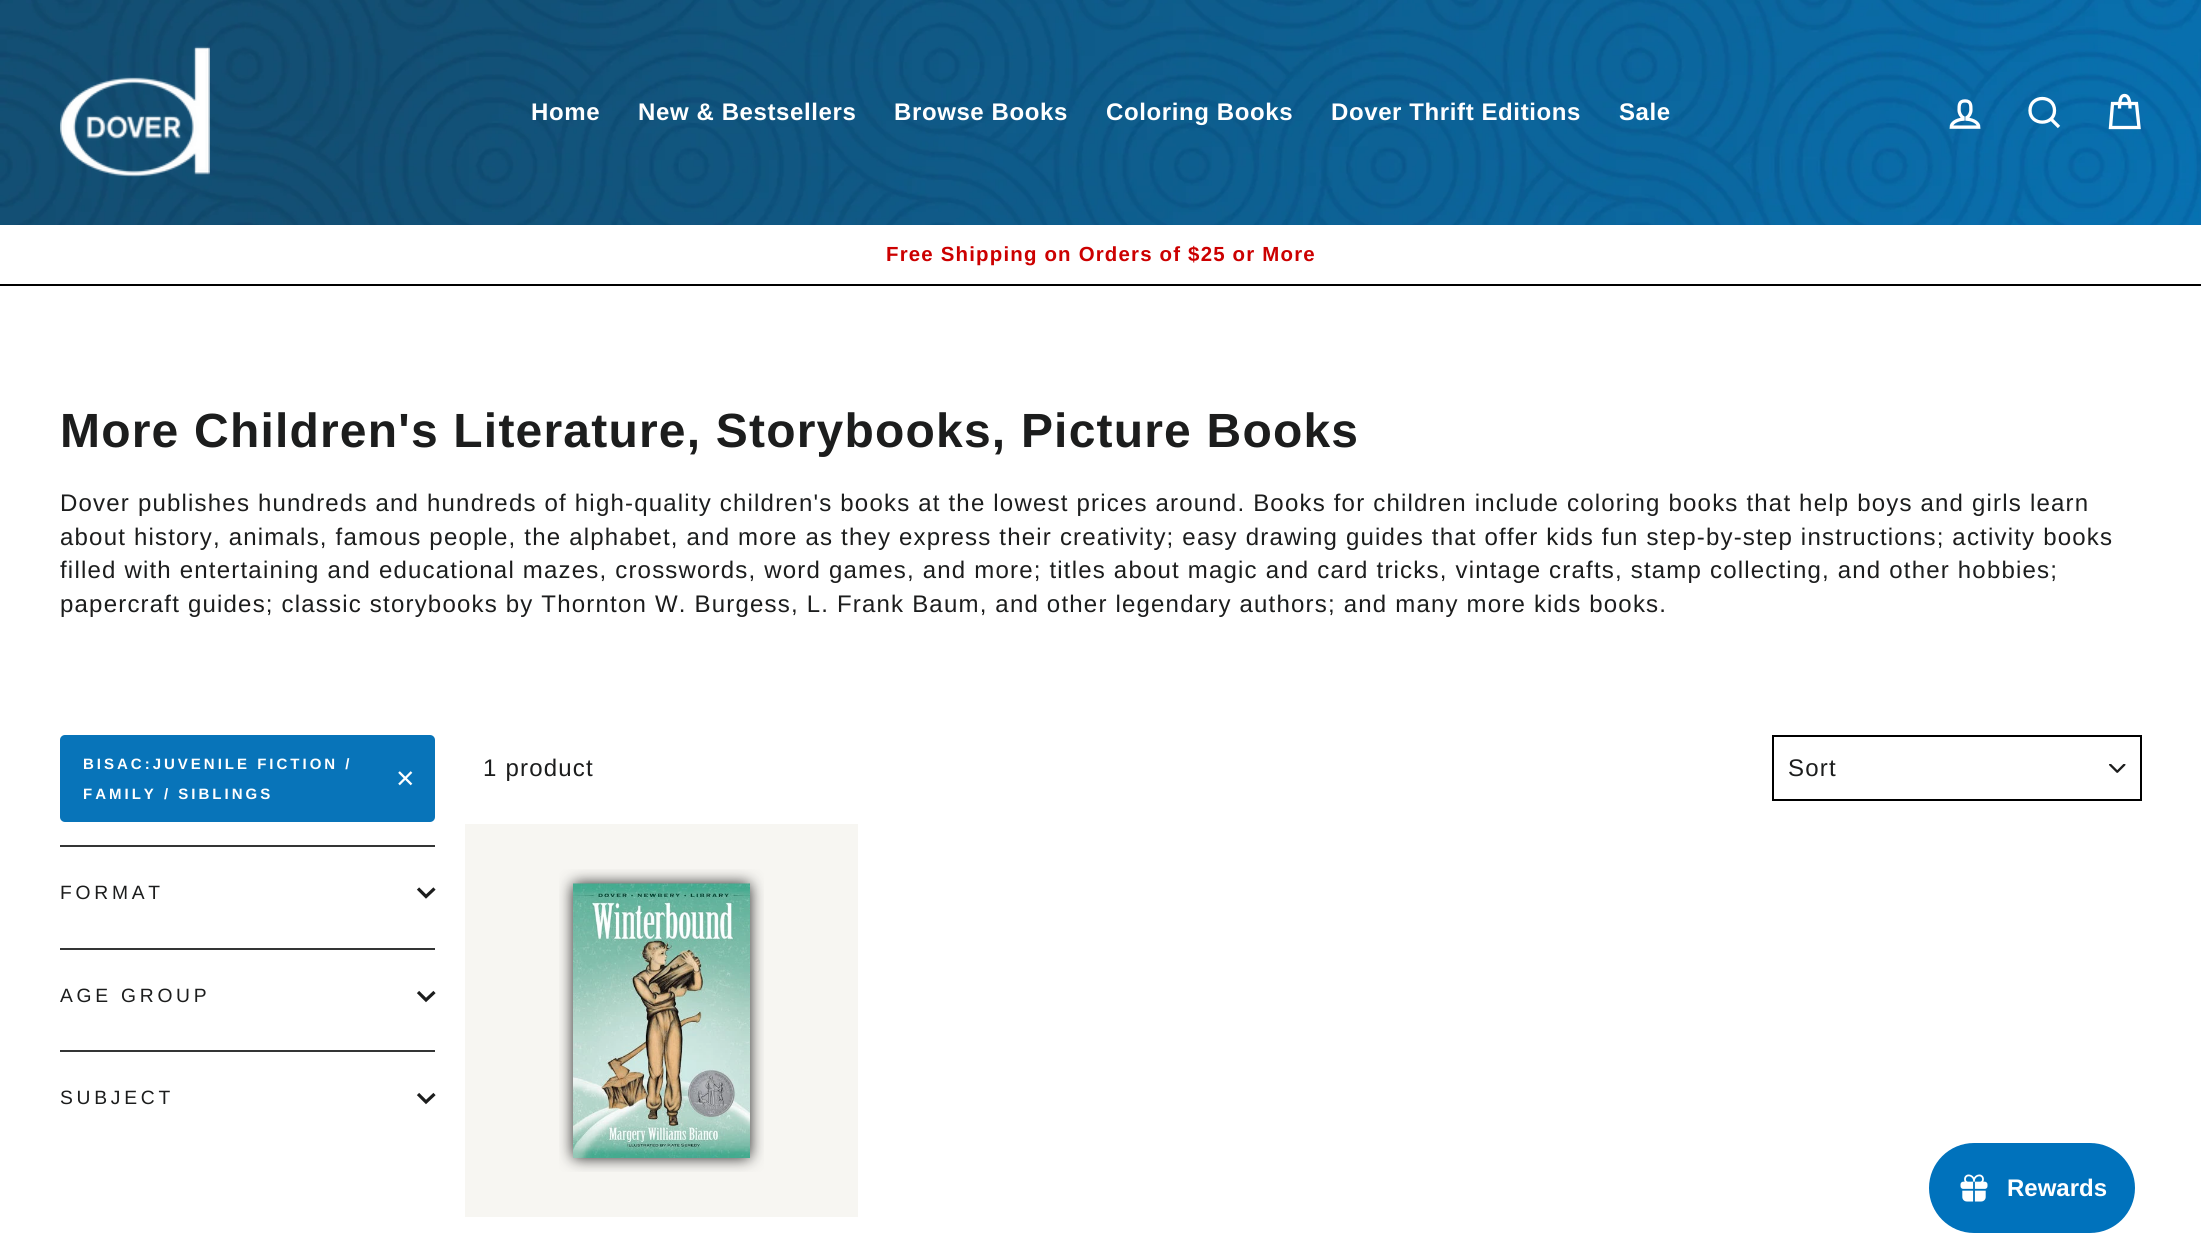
#include <cairo/cairo.h>
#include <math.h>
#include <stddef.h>

static cairo_t *cr;

static void use_color(int r, int g, int b) {
  cairo_set_source_rgb(cr, r / 255.0, g / 255.0, b / 255.0);
}

static void text(double x, double y, const char *s, const char *family, double size, int italic, int bold, int r, int g, int b) {
  cairo_select_font_face(cr, family, italic ? CAIRO_FONT_SLANT_ITALIC : CAIRO_FONT_SLANT_NORMAL,
    bold ? CAIRO_FONT_WEIGHT_BOLD : CAIRO_FONT_WEIGHT_NORMAL);
  cairo_set_font_size(cr, size);
  use_color(r, g, b);
  cairo_move_to(cr, x, y);
  cairo_show_text(cr, s);
}

static void spaced_text(double x, double y, const char *s, double letter, double word) {
  cairo_move_to(cr, x, y);
  while (*s) {
    char ch[5] = {0};
    int n = 0;
    do ch[n++] = *s++; while ((*s & 0xC0) == 0x80);
    cairo_show_text(cr, ch);
    cairo_rel_move_to(cr, letter + word * (*ch == ' '), 0);
  }
}

static void box(double x, double y, double w, double h, int r, int g, int b) {
  use_color(r, g, b);
  cairo_rectangle(cr, x, y, w, h);
  cairo_fill(cr);
}

static void round_rect(double x, double y, double w, double h, double r) {
  cairo_new_sub_path(cr);
  cairo_arc(cr, x + w - r, y + h - r, r, 0, M_PI / 2);
  cairo_arc(cr, x + r, y + h - r, r, M_PI / 2, M_PI);
  cairo_arc(cr, x + r, y + r, r, M_PI, 1.5 * M_PI);
  cairo_arc(cr, x + w - r, y + r, r, 1.5 * M_PI, 2 * M_PI);
  cairo_close_path(cr);
}

static void picture(const char *path, double x, double y, double w, double h) {
  cairo_surface_t *image = cairo_image_surface_create_from_png(path);
  cairo_save(cr);
  cairo_set_source_surface(cr, image, x, y);
  cairo_rectangle(cr, x, y, w, h);
  cairo_fill(cr);
  cairo_restore(cr);
  cairo_surface_destroy(image);
}

static void draw(void) {
  use_color(255, 255, 255);
  cairo_paint(cr);
  picture("img_01.png", 0, 0, 2201, 225);
  picture("img_02.png", 60, 46, 150, 131);
  picture("img_03.png", 1949, 99, 32, 30);
  cairo_new_path(cr);
  cairo_move_to(cr, 2054.5, 110.5);
  cairo_curve_to(cr, 2054.5, 126, 2030, 126, 2030, 110.5);
  cairo_curve_to(cr, 2030, 94.5, 2054.5, 94.5, 2054.5, 110.5);
  cairo_close_path(cr);
  cairo_move_to(cr, 2059, 127);
  cairo_line_to(cr, 2051, 119);
  use_color(255, 255, 255);
  cairo_set_line_width(cr, 3.3);
  cairo_stroke(cr);
  cairo_new_path(cr);
  cairo_move_to(cr, 2119.5, 108.5);
  cairo_curve_to(cr, 2119.5, 98, 2121.5, 95.5, 2124.5, 95.5);
  cairo_curve_to(cr, 2127.5, 95.5, 2130, 98, 2130, 108.5);
  cairo_move_to(cr, 2112.5, 103.5);
  cairo_line_to(cr, 2136.5, 103.5);
  cairo_line_to(cr, 2139, 127.5);
  cairo_line_to(cr, 2110.5, 127.5);
  cairo_close_path(cr);
  cairo_stroke(cr);
  box(0, 284, 2201, 2, 0, 0, 0);
  use_color(8, 116, 185);
  round_rect(60, 735, 375, 87, 5);
  cairo_fill(cr);
  cairo_new_path(cr);
  cairo_move_to(cr, 399, 772);
  cairo_line_to(cr, 411.5, 784.5);
  cairo_move_to(cr, 411.5, 772);
  cairo_line_to(cr, 399, 784.5);
  use_color(255, 255, 255);
  cairo_set_line_width(cr, 2.3);
  cairo_stroke(cr);
  box(60, 845, 375, 2, 52, 53, 53);
  cairo_new_path(cr);
  cairo_move_to(cr, 418, 888.5);
  cairo_line_to(cr, 426, 896.5);
  cairo_line_to(cr, 434.5, 888.5);
  use_color(28, 29, 29);
  cairo_set_line_width(cr, 3.2);
  cairo_stroke(cr);
  box(60, 948, 375, 2, 52, 53, 53);
  cairo_new_path(cr);
  cairo_move_to(cr, 418, 992);
  cairo_line_to(cr, 426, 1000);
  cairo_line_to(cr, 434.5, 992);
  use_color(28, 29, 29);
  cairo_stroke(cr);
  box(60, 1050, 375, 2, 52, 53, 53);
  cairo_new_path(cr);
  cairo_move_to(cr, 418, 1094);
  cairo_line_to(cr, 426, 1102);
  cairo_line_to(cr, 434.5, 1094);
  use_color(28, 29, 29);
  cairo_stroke(cr);
  picture("img_04.png", 2109, 764, 17, 9);
  cairo_rectangle(cr, 1773, 736, 368, 64);
  use_color(0, 0, 0);
  cairo_set_line_width(cr, 2);
  cairo_stroke(cr);
  box(465, 824, 393, 393, 247, 246, 242);
  picture("img_05.png", 559, 869, 205, 303);
  use_color(0, 114, 188);
  round_rect(1929, 1143, 206, 90, 45);
  cairo_fill(cr);
  picture("img_06.png", 1960, 1174, 28, 28);
  cairo_select_font_face(cr, "Liberation Sans", CAIRO_FONT_SLANT_NORMAL, CAIRO_FONT_WEIGHT_BOLD);
  cairo_set_font_size(cr, 24);
  use_color(255, 255, 255);
  spaced_text(531, 120, "Home", 0.6, 0);
  spaced_text(638, 120, "New & Bestsellers", 0.6, 0);
  spaced_text(894, 120, "Browse Books", 0.6, 0);
  spaced_text(1106, 120, "Coloring Books", 0.6, 0);
  spaced_text(1331, 120, "Dover Thrift Editions", 0.6, 0);
  spaced_text(1619, 120, "Sale", 0.6, 0);
  cairo_select_font_face(cr, "Arimo", CAIRO_FONT_SLANT_NORMAL, CAIRO_FONT_WEIGHT_BOLD);
  cairo_set_font_size(cr, 20.4);
  use_color(204, 0, 0);
  spaced_text(886, 261, "Free Shipping on Orders of $25 or More", 1.2, 0);
  cairo_select_font_face(cr, "Liberation Sans", CAIRO_FONT_SLANT_NORMAL, CAIRO_FONT_WEIGHT_BOLD);
  cairo_set_font_size(cr, 48);
  use_color(28, 29, 29);
  spaced_text(60, 447, "More Children's Literature, Storybooks, Picture Books", 1.2, 0);
  cairo_select_font_face(cr, "Arimo", CAIRO_FONT_SLANT_NORMAL, CAIRO_FONT_WEIGHT_NORMAL);
  cairo_set_font_size(cr, 24);
  spaced_text(60, 511, "Dover publishes hundreds and hundreds of high-quality children's books at the lowest prices around. Books for children include coloring books that help boys and girls learn", 1.2, 0);
  spaced_text(60, 545, "about history, animals, famous people, the alphabet, and more as they express their creativity; easy drawing guides that offer kids fun step-by-step instructions; activity books", 1.2, 0);
  spaced_text(60, 578, "filled with entertaining and educational mazes, crosswords, word games, and more; titles about magic and card tricks, vintage crafts, stamp collecting, and other hobbies;", 1.2, 0);
  spaced_text(60, 612, "papercraft guides; classic storybooks by Thornton W. Burgess, L. Frank Baum, and other legendary authors; and many more kids books.", 1.2, 0);
  cairo_select_font_face(cr, "Arimo", CAIRO_FONT_SLANT_NORMAL, CAIRO_FONT_WEIGHT_BOLD);
  cairo_set_font_size(cr, 15);
  use_color(255, 255, 255);
  spaced_text(83, 769, "BISAC:JUVENILE FICTION /", 3, 0);
  spaced_text(83, 799, "FAMILY / SIBLINGS", 3, 0);
  cairo_select_font_face(cr, "Arimo", CAIRO_FONT_SLANT_NORMAL, CAIRO_FONT_WEIGHT_NORMAL);
  cairo_set_font_size(cr, 19.25);
  use_color(28, 29, 29);
  spaced_text(60, 899, "FORMAT", 3.75, 0);
  spaced_text(60, 1002, "AGE GROUP", 3.75, 0);
  spaced_text(60, 1104, "SUBJECT", 3.75, 0);
  cairo_set_font_size(cr, 24);
  spaced_text(483, 776, "1 product", 1.2, 0);
  spaced_text(1788, 776, "Sort", 1.2, 0);
  text(2007, 1196, "Rewards", "Liberation Sans", 24, 0, 1, 255, 255, 255);
}

int main(void) {
  cairo_surface_t *surface = cairo_image_surface_create(CAIRO_FORMAT_RGB24, 2201, 1247);
  cr = cairo_create(surface);
  cairo_font_options_t *options = cairo_font_options_create();
  cairo_font_options_set_hint_metrics(options, CAIRO_HINT_METRICS_OFF);
  cairo_font_options_set_hint_style(options, CAIRO_HINT_STYLE_NONE);
  cairo_set_font_options(cr, options);
  cairo_set_miter_limit(cr, 4);
  draw();
  cairo_surface_write_to_png(surface, "out.png");
  cairo_font_options_destroy(options);
  cairo_destroy(cr);
  cairo_surface_destroy(surface);
  return 0;
}
